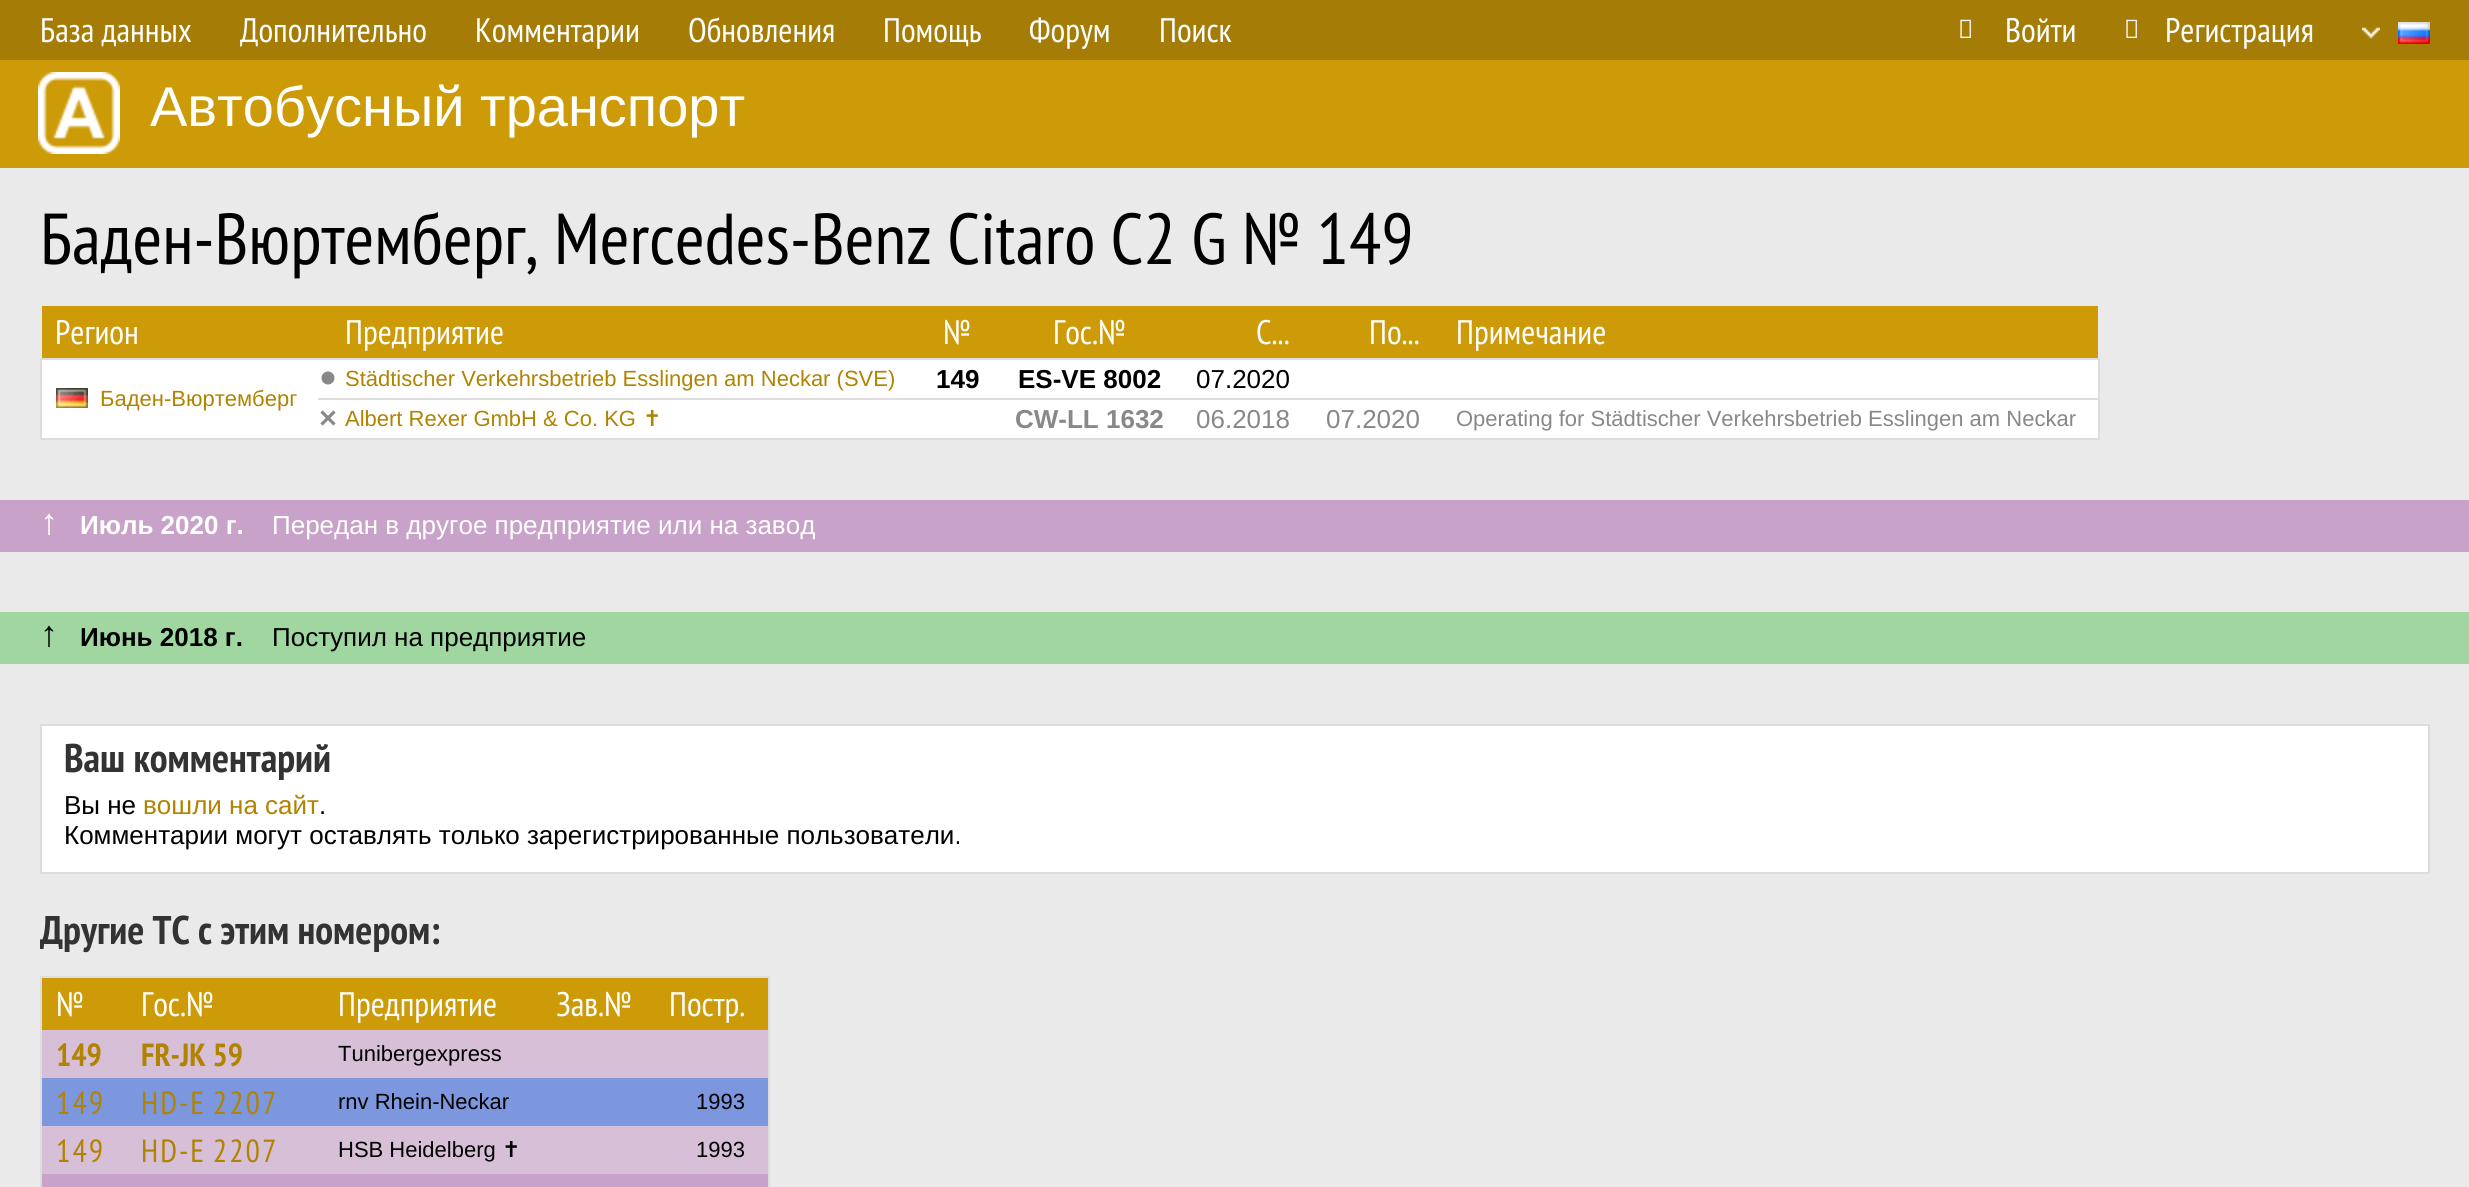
#include <cairo/cairo.h>
#include <math.h>
#include <stddef.h>

static cairo_t *cr;

static void use_color(int r, int g, int b) {
  cairo_set_source_rgb(cr, r / 255.0, g / 255.0, b / 255.0);
}

static void text(double x, double y, const char *s, const char *family, double size, int italic, int bold, int r, int g, int b) {
  cairo_select_font_face(cr, family, italic ? CAIRO_FONT_SLANT_ITALIC : CAIRO_FONT_SLANT_NORMAL,
    bold ? CAIRO_FONT_WEIGHT_BOLD : CAIRO_FONT_WEIGHT_NORMAL);
  cairo_set_font_size(cr, size);
  use_color(r, g, b);
  cairo_move_to(cr, x, y);
  cairo_show_text(cr, s);
}

static void spaced_text(double x, double y, const char *s, double letter, double word) {
  cairo_move_to(cr, x, y);
  while (*s) {
    char ch[5] = {0};
    int n = 0;
    do ch[n++] = *s++; while ((*s & 0xC0) == 0x80);
    cairo_show_text(cr, ch);
    cairo_rel_move_to(cr, letter + word * (*ch == ' '), 0);
  }
}

static void box(double x, double y, double w, double h, int r, int g, int b) {
  use_color(r, g, b);
  cairo_rectangle(cr, x, y, w, h);
  cairo_fill(cr);
}

static void picture(const char *path, double x, double y, double w, double h) {
  cairo_surface_t *image = cairo_image_surface_create_from_png(path);
  cairo_save(cr);
  cairo_set_source_surface(cr, image, x, y);
  cairo_rectangle(cr, x, y, w, h);
  cairo_fill(cr);
  cairo_restore(cr);
  cairo_surface_destroy(image);
}

static void draw(void) {
  use_color(164, 124, 6);
  cairo_paint(cr);
  picture("img_01.png", 1960, 19, 11, 19);
  picture("img_01.png", 2126, 19, 11, 19);
  picture("img_02.png", 2362, 27, 18, 12);
  picture("img_03.png", 2398, 22, 32, 22);
  box(0, 60, 2469, 108, 205, 155, 8);
  picture("img_04.png", 38, 72, 82, 82);
  box(0, 168, 2469, 1019, 234, 234, 234);
  box(42, 306, 2056, 52, 205, 155, 8);
  box(42, 360, 2056, 78, 255, 255, 255);
  box(40, 358, 2060, 2, 221, 221, 221);
  box(2098, 358, 2, 82, 221, 221, 221);
  box(40, 438, 2060, 2, 221, 221, 221);
  box(40, 358, 2, 82, 221, 221, 221);
  use_color(136, 136, 136);
  cairo_arc(cr, 328, 378, 6.5, 0, 2 * M_PI);
  cairo_fill(cr);
  picture("img_05.png", 56, 388, 32, 20);
  box(318, 398, 1782, 2, 221, 221, 221);
  cairo_new_path(cr);
  cairo_move_to(cr, 321.5, 411.5);
  cairo_line_to(cr, 334.5, 424.5);
  cairo_move_to(cr, 321.5, 424.5);
  cairo_line_to(cr, 334.5, 411.5);
  use_color(136, 136, 136);
  cairo_set_line_width(cr, 3.2);
  cairo_stroke(cr);
  box(0, 500, 2469, 52, 200, 162, 200);
  box(0, 612, 2469, 52, 160, 214, 160);
  use_color(255, 255, 255);
  cairo_rectangle(cr, 41, 725, 2388, 148);
  cairo_fill_preserve(cr);
  use_color(221, 221, 221);
  cairo_set_line_width(cr, 2);
  cairo_stroke(cr);
  cairo_rectangle(cr, 41, 977, 728, 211);
  cairo_stroke(cr);
  box(42, 978, 726, 52, 205, 155, 8);
  box(42, 1030, 726, 48, 216, 191, 216);
  box(42, 1078, 726, 48, 125, 151, 223);
  box(42, 1126, 726, 48, 216, 191, 216);
  box(42, 1174, 726, 13, 200, 162, 200);
  text(40, 42, "База данных", "PT Sans Narrow", 34, 0, 0, 255, 255, 255);
  text(240, 42, "Дополнительно", "PT Sans Narrow", 34, 0, 0, 255, 255, 255);
  text(475, 42, "Комментарии", "PT Sans Narrow", 34, 0, 0, 255, 255, 255);
  text(688, 42, "Обновления", "PT Sans Narrow", 34, 0, 0, 255, 255, 255);
  text(883, 42, "Помощь", "PT Sans Narrow", 34, 0, 0, 255, 255, 255);
  text(1029, 42, "Форум", "PT Sans Narrow", 34, 0, 0, 255, 255, 255);
  text(1159, 42, "Поиск", "PT Sans Narrow", 34, 0, 0, 255, 255, 255);
  text(2005, 42, "Войти", "PT Sans Narrow", 34, 0, 0, 255, 255, 255);
  text(2165, 42, "Регистрация", "PT Sans Narrow", 34, 0, 0, 255, 255, 255);
  text(150, 126, "Автобусный транспорт", "Liberation Sans", 56, 0, 0, 255, 255, 255);
  text(40, 264, "Баден-Вюртемберг, Mercedes-Benz Citaro C2 G № 149", "PT Sans Narrow", 72, 0, 0, 0, 0, 0);
  text(55, 344, "Регион", "PT Sans Narrow", 34, 0, 0, 255, 255, 255);
  text(345, 344, "Предприятие", "PT Sans Narrow", 34, 0, 0, 255, 255, 255);
  text(943, 344, "№", "PT Sans Narrow", 34, 0, 0, 255, 255, 255);
  text(1053, 344, "Гос.№", "PT Sans Narrow", 34, 0, 0, 255, 255, 255);
  text(1256, 344, "С...", "PT Sans Narrow", 34, 0, 0, 255, 255, 255);
  text(1369, 344, "По...", "PT Sans Narrow", 34, 0, 0, 255, 255, 255);
  text(1456, 344, "Примечание", "PT Sans Narrow", 34, 0, 0, 255, 255, 255);
  text(345, 386, "Städtischer Verkehrsbetrieb Esslingen am Neckar (SVE)", "Liberation Sans", 22, 0, 0, 176, 131, 0);
  text(936, 388, "149", "Liberation Sans", 26, 0, 1, 0, 0, 0);
  text(1018, 388, "ES-VE 8002", "Liberation Sans", 26, 0, 1, 0, 0, 0);
  text(1196, 388, "07.2020", "Liberation Sans", 26, 0, 0, 0, 0, 0);
  text(100, 406, "Баден-Вюртемберг", "Liberation Sans", 22, 0, 0, 176, 131, 0);
  text(345, 426, "Albert Rexer GmbH & Co. KG", "Liberation Sans", 22, 0, 0, 176, 131, 0);
  text(643, 426, "✝", "DejaVu Sans", 22, 0, 0, 176, 131, 0);
  text(1015, 428, "CW-LL 1632", "Liberation Sans", 26, 0, 1, 136, 136, 136);
  text(1196, 428, "06.2018", "Liberation Sans", 26, 0, 0, 136, 136, 136);
  text(1326, 428, "07.2020", "Liberation Sans", 26, 0, 0, 136, 136, 136);
  text(1456, 426, "Operating for Städtischer Verkehrsbetrieb Esslingen am Neckar", "Liberation Sans", 22, 0, 0, 136, 136, 136);
  text(40, 534, "↑", "Liberation Sans", 36, 0, 0, 255, 255, 255);
  text(80, 534, "Июль 2020 г.", "Liberation Sans", 26, 0, 1, 255, 255, 255);
  text(272, 534, "Передан в другое предприятие или на завод", "Liberation Sans", 26, 0, 0, 255, 255, 255);
  text(40, 646, "↑", "Liberation Sans", 36, 0, 0, 0, 0, 0);
  text(80, 646, "Июнь 2018 г.", "Liberation Sans", 26, 0, 1, 0, 0, 0);
  text(272, 646, "Поступил на предприятие", "Liberation Sans", 26, 0, 0, 0, 0, 0);
  text(64, 772, "Ваш комментарий", "PT Sans Narrow", 40, 0, 1, 51, 51, 51);
  text(64, 814, "Вы не", "Liberation Sans", 26, 0, 0, 0, 0, 0);
  text(143, 814, "вошли на сайт", "Liberation Sans", 26, 0, 0, 176, 131, 0);
  text(319, 814, ".", "Liberation Sans", 26, 0, 0, 0, 0, 0);
  text(64, 844, "Комментарии могут оставлять только зарегистрированные пользователи.", "Liberation Sans", 26, 0, 0, 0, 0, 0);
  text(40, 944, "Другие ТС с этим номером:", "PT Sans Narrow", 40, 0, 1, 51, 51, 51);
  text(56, 1016, "№", "PT Sans Narrow", 34, 0, 0, 255, 255, 255);
  text(141, 1016, "Гос.№", "PT Sans Narrow", 34, 0, 0, 255, 255, 255);
  text(338, 1016, "Предприятие", "PT Sans Narrow", 34, 0, 0, 255, 255, 255);
  text(556, 1016, "Зав.№", "PT Sans Narrow", 34, 0, 0, 255, 255, 255);
  text(669, 1016, "Постр.", "PT Sans Narrow", 34, 0, 0, 255, 255, 255);
  text(56, 1066, "149", "PT Sans Narrow", 32, 0, 1, 176, 131, 0);
  text(141, 1066, "FR-JK 59", "PT Sans Narrow", 32, 0, 1, 176, 131, 0);
  text(338, 1061, "Tunibergexpress", "Liberation Sans", 22, 0, 0, 0, 0, 0);
  cairo_select_font_face(cr, "PT Sans Narrow", CAIRO_FONT_SLANT_NORMAL, CAIRO_FONT_WEIGHT_NORMAL);
  cairo_set_font_size(cr, 32);
  use_color(176, 131, 0);
  spaced_text(56, 1114, "149", 2, 0);
  spaced_text(141, 1114, "HD-E 2207", 2, -2);
  text(338, 1109, "rnv Rhein-Neckar", "Liberation Sans", 22, 0, 0, 0, 0, 0);
  text(696, 1109, "1993", "Liberation Sans", 22, 0, 0, 0, 0, 0);
  cairo_select_font_face(cr, "PT Sans Narrow", CAIRO_FONT_SLANT_NORMAL, CAIRO_FONT_WEIGHT_NORMAL);
  cairo_set_font_size(cr, 32);
  use_color(176, 131, 0);
  spaced_text(56, 1162, "149", 2, 0);
  spaced_text(141, 1162, "HD-E 2207", 2, -2);
  text(338, 1157, "HSB Heidelberg", "Liberation Sans", 22, 0, 0, 0, 0, 0);
  text(502, 1157, "✝", "DejaVu Sans", 22, 0, 0, 0, 0, 0);
  text(696, 1157, "1993", "Liberation Sans", 22, 0, 0, 0, 0, 0);
}

int main(void) {
  cairo_surface_t *surface = cairo_image_surface_create(CAIRO_FORMAT_RGB24, 2469, 1187);
  cr = cairo_create(surface);
  cairo_font_options_t *options = cairo_font_options_create();
  cairo_font_options_set_hint_metrics(options, CAIRO_HINT_METRICS_OFF);
  cairo_font_options_set_hint_style(options, CAIRO_HINT_STYLE_NONE);
  cairo_set_font_options(cr, options);
  cairo_set_miter_limit(cr, 4);
  draw();
  cairo_surface_write_to_png(surface, "out.png");
  cairo_font_options_destroy(options);
  cairo_destroy(cr);
  cairo_surface_destroy(surface);
  return 0;
}
